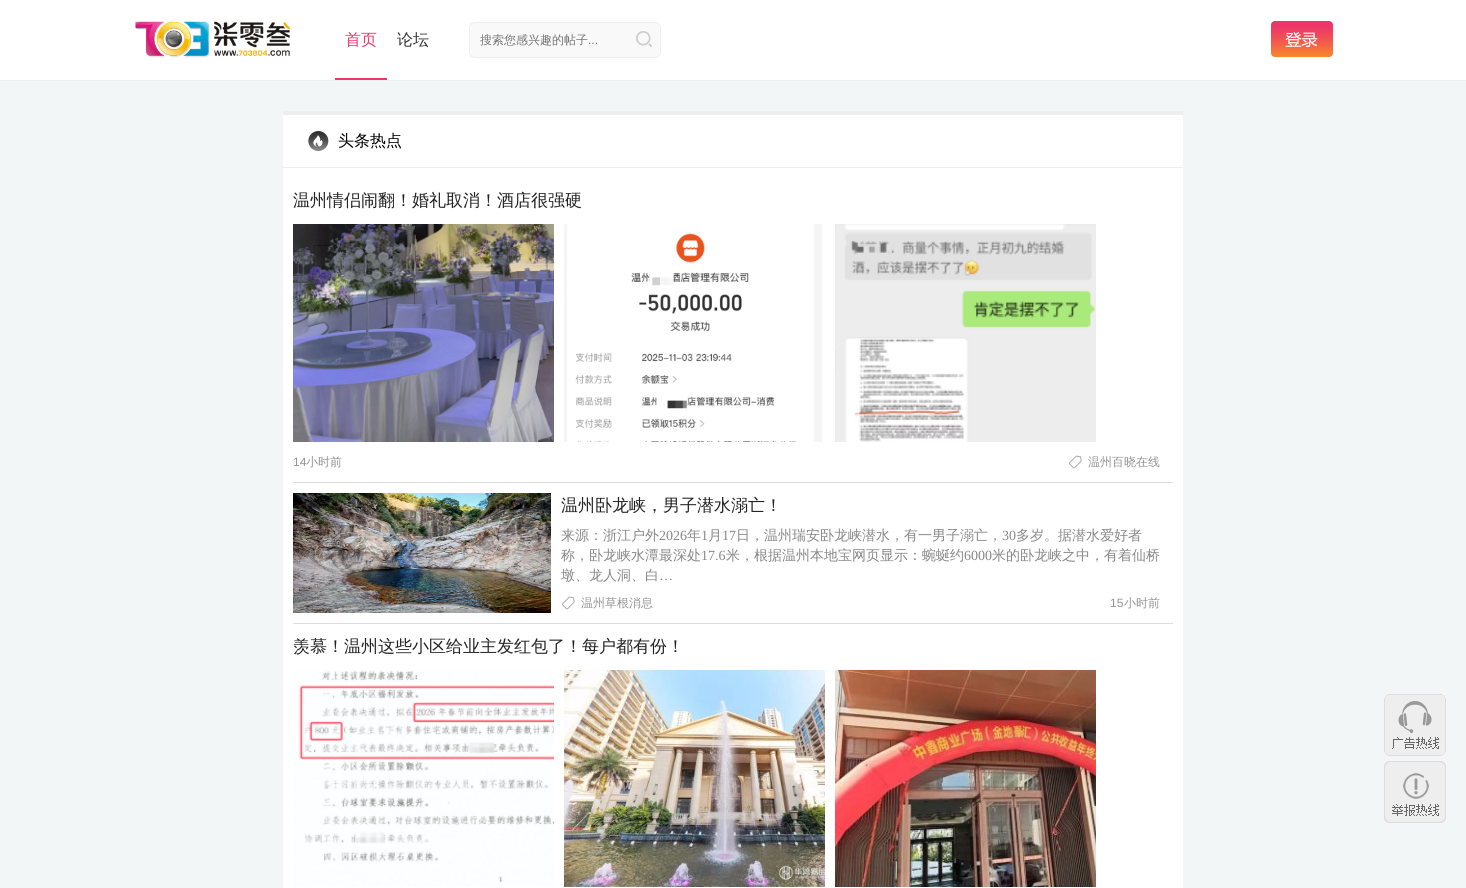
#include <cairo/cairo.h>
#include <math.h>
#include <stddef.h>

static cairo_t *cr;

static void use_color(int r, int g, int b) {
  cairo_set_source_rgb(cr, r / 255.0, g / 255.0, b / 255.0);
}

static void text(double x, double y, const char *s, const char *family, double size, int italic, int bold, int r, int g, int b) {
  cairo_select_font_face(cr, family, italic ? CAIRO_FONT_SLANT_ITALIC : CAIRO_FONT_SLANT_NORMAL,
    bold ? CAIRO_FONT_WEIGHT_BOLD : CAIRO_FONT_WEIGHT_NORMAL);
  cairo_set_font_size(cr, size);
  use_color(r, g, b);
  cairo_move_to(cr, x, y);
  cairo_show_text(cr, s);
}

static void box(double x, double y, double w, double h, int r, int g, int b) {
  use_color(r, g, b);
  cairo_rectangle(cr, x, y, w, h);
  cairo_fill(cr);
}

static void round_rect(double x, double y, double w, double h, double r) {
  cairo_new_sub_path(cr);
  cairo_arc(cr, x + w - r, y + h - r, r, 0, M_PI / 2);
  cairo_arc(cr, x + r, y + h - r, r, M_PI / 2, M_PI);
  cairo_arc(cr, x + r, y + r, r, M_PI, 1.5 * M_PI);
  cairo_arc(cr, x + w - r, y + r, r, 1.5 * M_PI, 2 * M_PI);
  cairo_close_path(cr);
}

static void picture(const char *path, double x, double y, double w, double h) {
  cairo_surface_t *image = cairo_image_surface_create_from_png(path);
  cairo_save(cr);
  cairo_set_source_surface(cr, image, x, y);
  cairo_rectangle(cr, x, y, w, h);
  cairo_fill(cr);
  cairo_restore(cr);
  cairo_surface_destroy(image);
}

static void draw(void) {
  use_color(243, 246, 247);
  cairo_paint(cr);
  box(0, 0, 1466, 80, 255, 255, 255);
  picture("img_01.png", 135, 21, 155, 37);
  box(335, 78, 52, 2, 238, 55, 105);
  use_color(249, 249, 249);
  round_rect(469.5, 22.5, 191, 35, 5.5);
  cairo_fill_preserve(cr);
  use_color(238, 238, 238);
  cairo_set_line_width(cr, 1);
  cairo_stroke(cr);
  picture("img_02.png", 636, 31, 16, 16);
  picture("img_03.png", 1271, 21, 62, 36);
  box(0, 80, 1466, 1, 238, 238, 238);
  box(283, 115, 900, 773, 255, 255, 255);
  box(283, 111, 900, 4, 238, 238, 238);
  box(283, 167, 900, 1, 238, 238, 238);
  picture("img_04.png", 308, 131, 21, 20);
  box(293, 482, 880, 1, 221, 221, 221);
  picture("img_05.png", 293, 224, 261, 218);
  picture("img_06.png", 564, 224, 261, 218);
  picture("img_07.png", 835, 224, 261, 218);
  picture("img_08.png", 1069, 455, 13, 14);
  box(293, 623, 880, 1, 221, 221, 221);
  picture("img_09.png", 293, 493, 258, 120);
  picture("img_08.png", 562, 596, 13, 14);
  picture("img_10.png", 293, 670, 261, 217);
  picture("img_11.png", 564, 670, 261, 217);
  picture("img_12.png", 835, 670, 261, 217);
  picture("img_13.png", 1384, 694, 62, 62);
  picture("img_14.png", 1384, 761, 62, 62);
  text(345, 45, "首页", "WenQuanYi Zen Hei Medium", 16, 0, 0, 238, 55, 105);
  text(397, 45, "论坛", "WenQuanYi Zen Hei Medium", 16, 0, 0, 51, 51, 51);
  text(480, 44, "搜索您感兴趣的帖子", "WenQuanYi Zen Hei Medium", 12, 0, 0, 117, 117, 117);
  text(588, 44, "...", "Liberation Sans", 12, 0, 0, 117, 117, 117);
  text(338, 146, "头条热点", "WenQuanYi Zen Hei Medium", 16, 0, 0, 0, 0, 0);
  text(293, 206, "温州情侣闹翻！婚礼取消！酒店很强硬", "WenQuanYi Zen Hei Medium", 17, 0, 0, 34, 34, 34);
  text(293, 466, "14", "Liberation Sans", 12, 0, 0, 148, 148, 148);
  text(306, 466, "小时前", "WenQuanYi Zen Hei Medium", 12, 0, 0, 148, 148, 148);
  text(1088, 466, "温州百晓在线", "WenQuanYi Zen Hei Medium", 12, 0, 0, 148, 148, 148);
  text(561, 511, "温州卧龙峡，男子潜水溺亡！", "WenQuanYi Zen Hei Medium", 17, 0, 0, 34, 34, 34);
  text(561, 540, "来源：浙江户外", "WenQuanYi Zen Hei Medium", 14, 0, 0, 136, 136, 136);
  text(659, 540, "2026", "Liberation Serif", 14, 0, 0, 136, 136, 136);
  text(687, 540, "年", "WenQuanYi Zen Hei Medium", 14, 0, 0, 136, 136, 136);
  text(701, 540, "1", "Liberation Serif", 14, 0, 0, 136, 136, 136);
  text(708, 540, "月", "WenQuanYi Zen Hei Medium", 14, 0, 0, 136, 136, 136);
  text(722, 540, "17", "Liberation Serif", 14, 0, 0, 136, 136, 136);
  text(736, 540, "日，温州瑞安卧龙峡潜水，有一男子溺亡，", "WenQuanYi Zen Hei Medium", 14, 0, 0, 136, 136, 136);
  text(1002, 540, "30", "Liberation Serif", 14, 0, 0, 136, 136, 136);
  text(1016, 540, "多岁。据潜水爱好者", "WenQuanYi Zen Hei Medium", 14, 0, 0, 136, 136, 136);
  text(561, 560, "称，卧龙峡水潭最深处", "WenQuanYi Zen Hei Medium", 14, 0, 0, 136, 136, 136);
  text(701, 560, "17.6", "Liberation Serif", 14, 0, 0, 136, 136, 136);
  text(726, 560, "米，根据温州本地宝网页显示：蜿蜒约", "WenQuanYi Zen Hei Medium", 14, 0, 0, 136, 136, 136);
  text(964, 560, "6000", "Liberation Serif", 14, 0, 0, 136, 136, 136);
  text(992, 560, "米的卧龙峡之中，有着仙桥", "WenQuanYi Zen Hei Medium", 14, 0, 0, 136, 136, 136);
  text(561, 580, "墩、龙人洞、白", "WenQuanYi Zen Hei Medium", 14, 0, 0, 136, 136, 136);
  text(659, 580, "…", "Liberation Serif", 14, 0, 0, 136, 136, 136);
  text(581, 607, "温州草根消息", "WenQuanYi Zen Hei Medium", 12, 0, 0, 148, 148, 148);
  text(1110, 607, "15", "Liberation Sans", 12, 0, 0, 148, 148, 148);
  text(1124, 607, "小时前", "WenQuanYi Zen Hei Medium", 12, 0, 0, 148, 148, 148);
  text(293, 652, "羡慕！温州这些小区给业主发红包了！每户都有份！", "WenQuanYi Zen Hei Medium", 17, 0, 0, 34, 34, 34);
}

int main(void) {
  cairo_surface_t *surface = cairo_image_surface_create(CAIRO_FORMAT_RGB24, 1466, 888);
  cr = cairo_create(surface);
  cairo_font_options_t *options = cairo_font_options_create();
  cairo_font_options_set_hint_metrics(options, CAIRO_HINT_METRICS_OFF);
  cairo_font_options_set_hint_style(options, CAIRO_HINT_STYLE_NONE);
  cairo_set_font_options(cr, options);
  cairo_set_miter_limit(cr, 4);
  draw();
  cairo_surface_write_to_png(surface, "out.png");
  cairo_font_options_destroy(options);
  cairo_destroy(cr);
  cairo_surface_destroy(surface);
  return 0;
}
